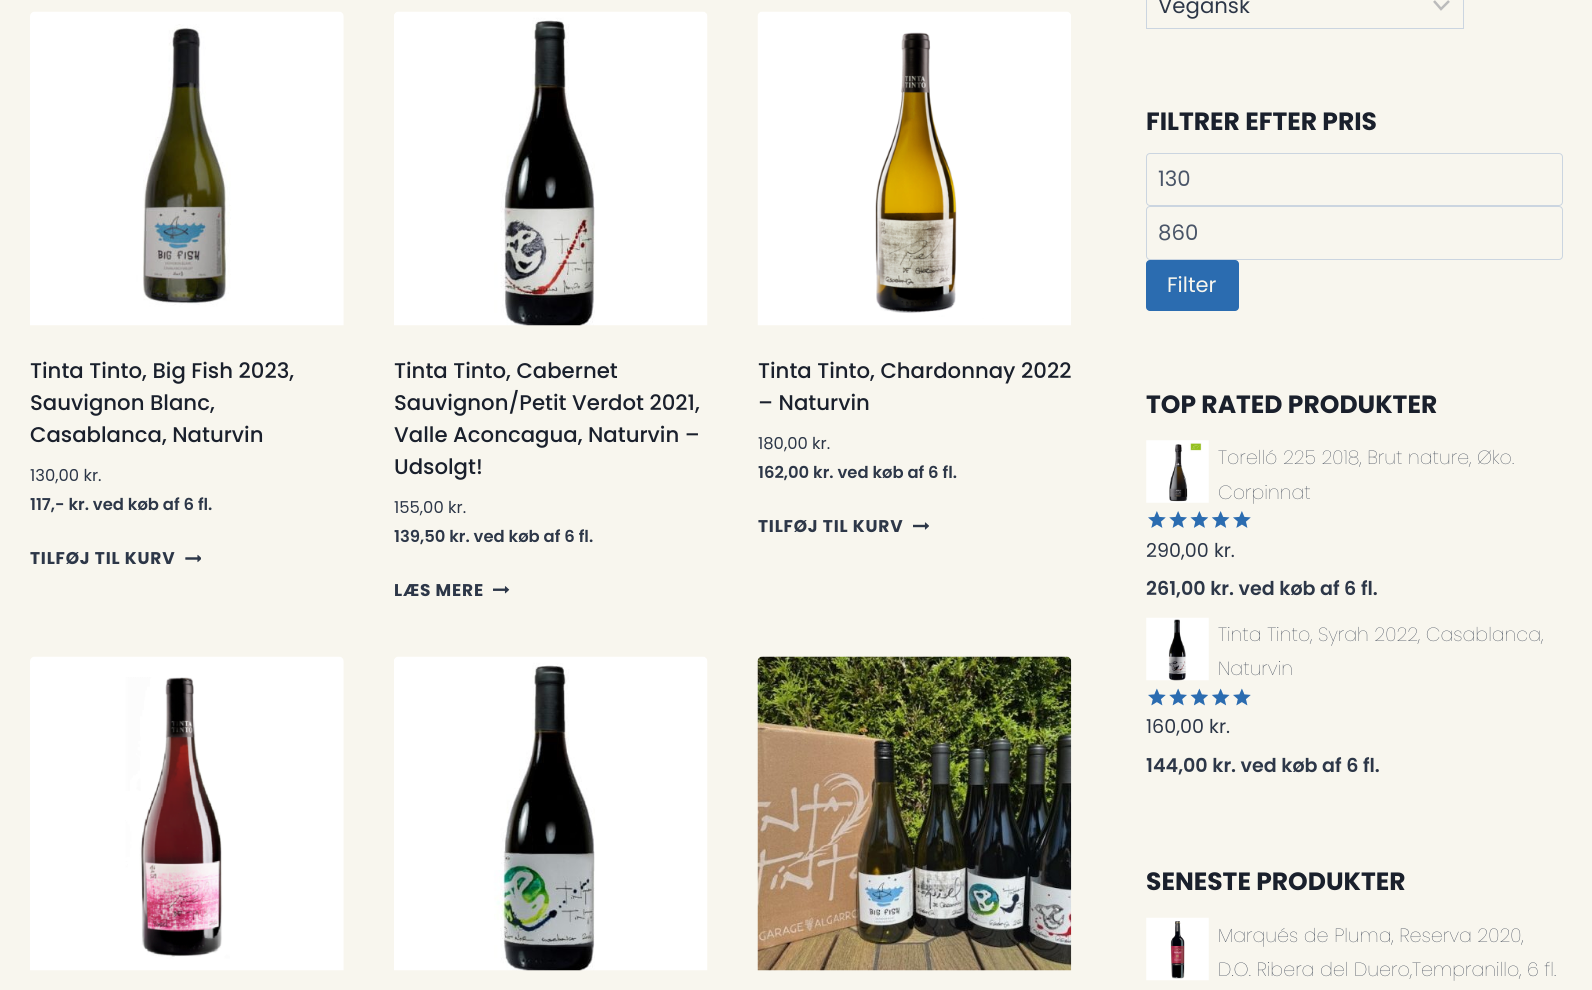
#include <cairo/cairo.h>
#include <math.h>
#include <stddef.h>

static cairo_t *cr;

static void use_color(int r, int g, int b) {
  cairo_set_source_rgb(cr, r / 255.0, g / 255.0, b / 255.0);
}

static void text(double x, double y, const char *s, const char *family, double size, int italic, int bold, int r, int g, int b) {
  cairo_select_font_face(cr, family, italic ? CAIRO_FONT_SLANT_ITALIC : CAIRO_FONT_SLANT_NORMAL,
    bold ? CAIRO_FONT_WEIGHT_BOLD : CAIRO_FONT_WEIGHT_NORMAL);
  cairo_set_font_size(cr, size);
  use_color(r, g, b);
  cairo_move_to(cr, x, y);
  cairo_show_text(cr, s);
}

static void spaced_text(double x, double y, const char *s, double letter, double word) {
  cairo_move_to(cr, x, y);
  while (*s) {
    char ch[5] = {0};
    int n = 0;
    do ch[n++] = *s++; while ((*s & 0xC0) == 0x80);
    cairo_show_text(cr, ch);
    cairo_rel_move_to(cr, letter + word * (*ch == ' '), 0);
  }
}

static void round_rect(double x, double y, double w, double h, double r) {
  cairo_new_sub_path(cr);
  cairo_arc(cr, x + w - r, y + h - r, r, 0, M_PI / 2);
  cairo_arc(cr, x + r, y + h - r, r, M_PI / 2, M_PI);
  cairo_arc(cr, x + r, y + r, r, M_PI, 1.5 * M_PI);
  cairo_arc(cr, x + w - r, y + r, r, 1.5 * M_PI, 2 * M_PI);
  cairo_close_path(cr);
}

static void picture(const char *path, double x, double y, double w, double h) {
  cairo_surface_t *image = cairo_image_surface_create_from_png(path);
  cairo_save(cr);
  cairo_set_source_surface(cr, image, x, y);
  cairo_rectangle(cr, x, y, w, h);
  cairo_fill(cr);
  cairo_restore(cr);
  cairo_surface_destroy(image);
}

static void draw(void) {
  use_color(248, 246, 238);
  cairo_paint(cr);
  picture("img_01.png", 30, 11, 314, 315);
  picture("img_02.png", 185, 554, 16, 9);
  picture("img_03.png", 394, 11, 314, 315);
  picture("img_04.png", 493, 586, 17, 8);
  picture("img_05.png", 757, 11, 314, 315);
  picture("img_06.png", 913, 522, 16, 8);
  picture("img_07.png", 30, 656, 314, 315);
  picture("img_08.png", 394, 656, 314, 315);
  picture("img_09.png", 757, 656, 315, 315);
  cairo_new_path(cr);
  cairo_move_to(cr, 1434, 1);
  cairo_line_to(cr, 1441, 9);
  cairo_line_to(cr, 1449, 1);
  use_color(187, 187, 187);
  cairo_set_line_width(cr, 2.5);
  cairo_stroke(cr);
  cairo_rectangle(cr, 1146.5, -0.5, 317, 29);
  use_color(203, 213, 224);
  cairo_set_line_width(cr, 1);
  cairo_stroke(cr);
  round_rect(1146.5, 153.5, 416, 52, 3.5);
  cairo_stroke(cr);
  round_rect(1146.5, 206.5, 416, 53, 3.5);
  cairo_stroke(cr);
  use_color(43, 108, 176);
  round_rect(1146, 260, 93, 51, 4);
  cairo_fill(cr);
  picture("img_10.png", 1146, 440, 63, 63);
  picture("img_11.png", 1148, 511, 103, 17);
  picture("img_12.png", 1148, 511, 103, 17);
  picture("img_13.png", 1146, 617, 63, 64);
  picture("img_15.png", 1148, 689, 103, 17);
  picture("img_14.png", 1148, 688, 103, 18);
  picture("img_16.png", 1146, 917, 63, 64);
  text(30, 378, "Tinta Tinto, Big Fish 2023,", "Poppins Medium", 21.25, 0, 0, 26, 32, 44);
  text(30, 410, "Sauvignon Blanc,", "Poppins Medium", 21.25, 0, 0, 26, 32, 44);
  text(30, 442, "Casablanca, Naturvin", "Poppins Medium", 21.25, 0, 0, 26, 32, 44);
  text(30, 481, "130,00 kr.", "Poppins", 16.4, 0, 0, 45, 55, 72);
  text(30, 510, "117,- kr. ved køb af 6 fl.", "Poppins SemiBold", 16.4, 0, 0, 45, 55, 72);
  cairo_select_font_face(cr, "Poppins", CAIRO_FONT_SLANT_NORMAL, CAIRO_FONT_WEIGHT_BOLD);
  cairo_set_font_size(cr, 17);
  spaced_text(30, 564, "TILFØJ TIL KURV", 0.8, 0);
  text(394, 378, "Tinta Tinto, Cabernet", "Poppins Medium", 21.25, 0, 0, 26, 32, 44);
  text(394, 410, "Sauvignon/Petit Verdot 2021,", "Poppins Medium", 21.25, 0, 0, 26, 32, 44);
  text(394, 442, "Valle Aconcagua, Naturvin –", "Poppins Medium", 21.25, 0, 0, 26, 32, 44);
  text(394, 474, "Udsolgt!", "Poppins Medium", 21.25, 0, 0, 26, 32, 44);
  text(394, 513, "155,00 kr.", "Poppins", 16.4, 0, 0, 45, 55, 72);
  text(394, 542, "139,50 kr. ved køb af 6 fl.", "Poppins SemiBold", 16.4, 0, 0, 45, 55, 72);
  cairo_select_font_face(cr, "Poppins", CAIRO_FONT_SLANT_NORMAL, CAIRO_FONT_WEIGHT_BOLD);
  cairo_set_font_size(cr, 17);
  spaced_text(394, 596, "LÆS MERE", 0.8, 0);
  text(758, 378, "Tinta Tinto, Chardonnay 2022", "Poppins Medium", 21.25, 0, 0, 26, 32, 44);
  text(758, 410, "– Naturvin", "Poppins Medium", 21.25, 0, 0, 26, 32, 44);
  text(758, 449, "180,00 kr.", "Poppins", 16.4, 0, 0, 45, 55, 72);
  text(758, 478, "162,00 kr. ved køb af 6 fl.", "Poppins SemiBold", 16.4, 0, 0, 45, 55, 72);
  cairo_select_font_face(cr, "Poppins", CAIRO_FONT_SLANT_NORMAL, CAIRO_FONT_WEIGHT_BOLD);
  cairo_set_font_size(cr, 17);
  spaced_text(758, 532, "TILFØJ TIL KURV", 0.8, 0);
  text(1158, 13, "Vegansk", "Poppins", 21.25, 0, 0, 45, 55, 72);
  text(1146, 130, "FILTRER EFTER PRIS", "Poppins", 25, 0, 1, 26, 32, 44);
  text(1158, 186, "130", "Poppins", 21.25, 0, 0, 74, 85, 104);
  text(1158, 240, "860", "Poppins", 21.25, 0, 0, 74, 85, 104);
  text(1167, 292, "Filter", "Poppins", 21, 0, 0, 248, 246, 238);
  text(1146, 413, "TOP RATED PRODUKTER", "Poppins", 25, 0, 1, 26, 32, 44);
  text(1218, 464, "Torelló 225 2018, Brut nature, Øko.", "Poppins ExtraLight", 19.1, 0, 0, 45, 55, 72);
  text(1218, 499, "Corpinnat", "Poppins ExtraLight", 19.1, 0, 0, 45, 55, 72);
  text(1146, 557, "290,00 kr.", "Poppins", 19.1, 0, 0, 45, 55, 72);
  text(1146, 595, "261,00 kr. ved køb af 6 fl.", "Poppins SemiBold", 19.1, 0, 0, 45, 55, 72);
  text(1218, 641, "Tinta Tinto, Syrah 2022, Casablanca,", "Poppins ExtraLight", 19.1, 0, 0, 45, 55, 72);
  text(1218, 675, "Naturvin", "Poppins ExtraLight", 19.1, 0, 0, 45, 55, 72);
  text(1146, 733, "160,00 kr.", "Poppins", 19.1, 0, 0, 45, 55, 72);
  text(1146, 772, "144,00 kr. ved køb af 6 fl.", "Poppins SemiBold", 19.1, 0, 0, 45, 55, 72);
  text(1146, 890, "SENESTE PRODUKTER", "Poppins", 25, 0, 1, 26, 32, 44);
  text(1218, 942, "Marqués de Pluma, Reserva 2020,", "Poppins ExtraLight", 19.1, 0, 0, 45, 55, 72);
  text(1218, 976, "D.O. Ribera del Duero,Tempranillo, 6 fl.", "Poppins ExtraLight", 19.1, 0, 0, 45, 55, 72);
}

int main(void) {
  cairo_surface_t *surface = cairo_image_surface_create(CAIRO_FORMAT_RGB24, 1592, 990);
  cr = cairo_create(surface);
  cairo_font_options_t *options = cairo_font_options_create();
  cairo_font_options_set_hint_metrics(options, CAIRO_HINT_METRICS_OFF);
  cairo_font_options_set_hint_style(options, CAIRO_HINT_STYLE_NONE);
  cairo_set_font_options(cr, options);
  cairo_set_miter_limit(cr, 4);
  draw();
  cairo_surface_write_to_png(surface, "out.png");
  cairo_font_options_destroy(options);
  cairo_destroy(cr);
  cairo_surface_destroy(surface);
  return 0;
}
